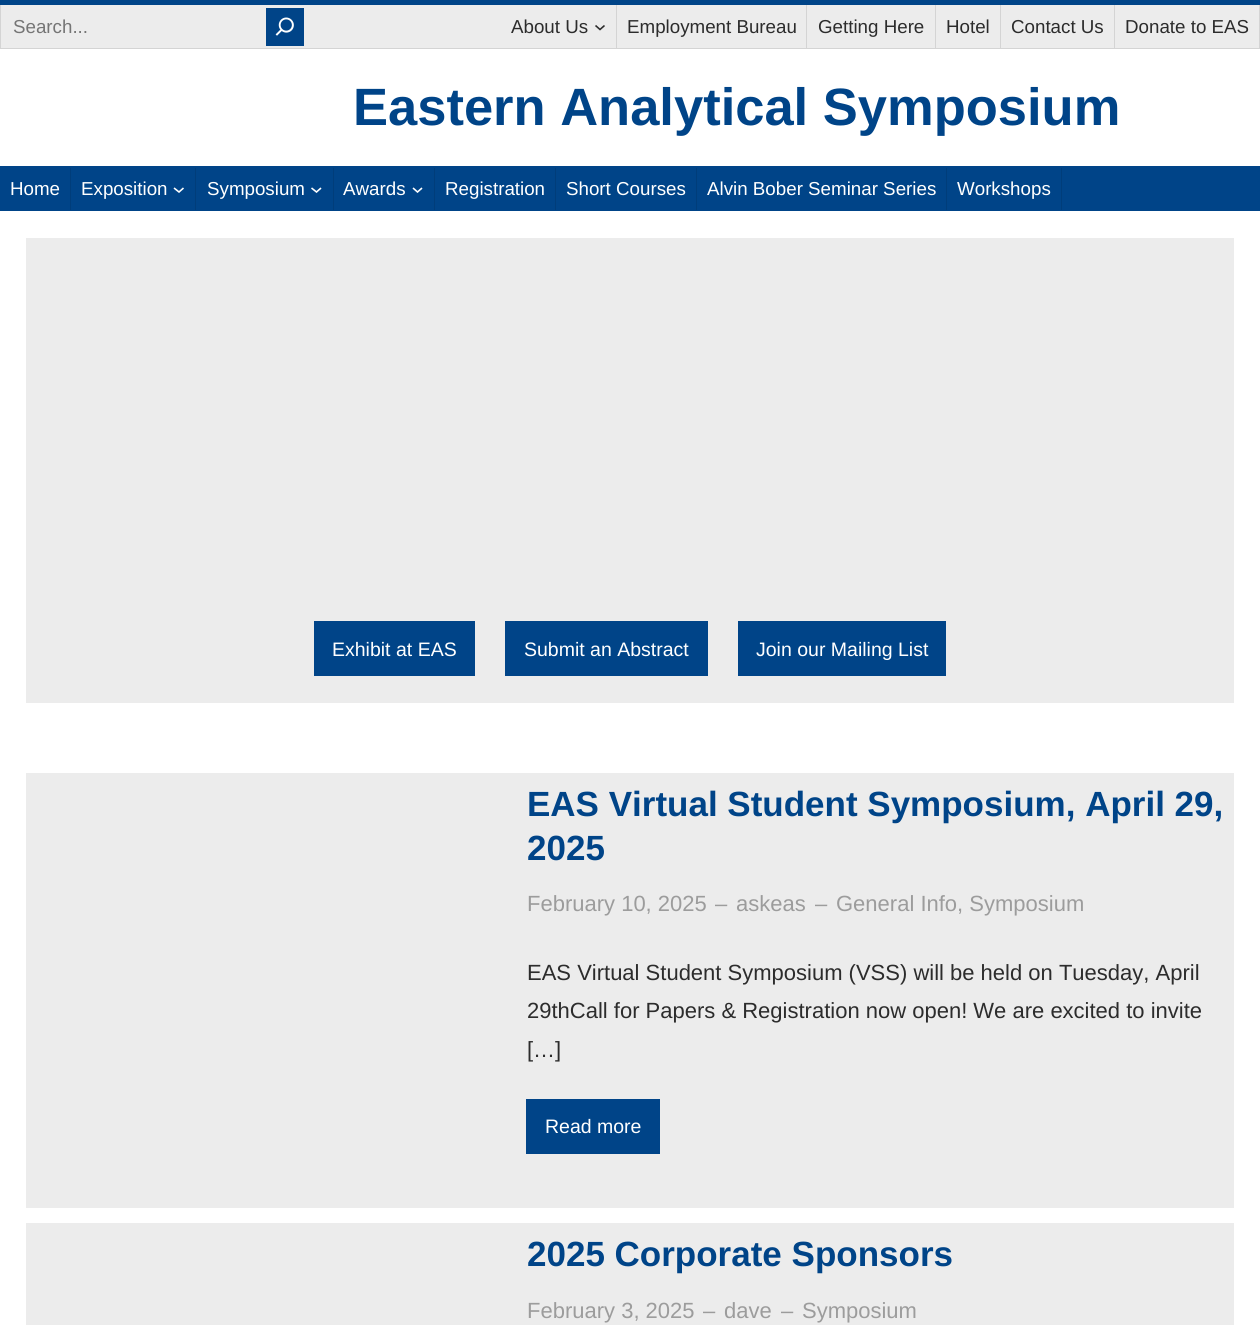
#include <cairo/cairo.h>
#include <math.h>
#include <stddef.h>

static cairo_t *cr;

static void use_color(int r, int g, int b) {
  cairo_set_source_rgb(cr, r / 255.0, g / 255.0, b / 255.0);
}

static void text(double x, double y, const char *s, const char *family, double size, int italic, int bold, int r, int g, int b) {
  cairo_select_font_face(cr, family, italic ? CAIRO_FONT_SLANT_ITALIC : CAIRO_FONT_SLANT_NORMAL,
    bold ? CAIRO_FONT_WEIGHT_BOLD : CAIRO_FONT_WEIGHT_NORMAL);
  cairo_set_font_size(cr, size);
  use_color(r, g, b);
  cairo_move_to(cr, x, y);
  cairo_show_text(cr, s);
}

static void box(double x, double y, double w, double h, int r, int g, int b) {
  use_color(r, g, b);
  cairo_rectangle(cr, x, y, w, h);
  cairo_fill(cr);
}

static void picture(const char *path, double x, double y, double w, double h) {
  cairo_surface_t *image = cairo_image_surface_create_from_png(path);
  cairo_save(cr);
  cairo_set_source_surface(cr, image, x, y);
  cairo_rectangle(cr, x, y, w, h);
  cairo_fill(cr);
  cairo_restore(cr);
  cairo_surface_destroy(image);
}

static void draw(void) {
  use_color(236, 236, 236);
  cairo_paint(cr);
  box(0, 0, 1260, 5, 0, 68, 136);
  box(0, 48, 1260, 1, 212, 212, 212);
  box(0, 5, 1, 43, 212, 212, 212);
  box(266, 8, 38, 38, 0, 68, 136);
  picture("img_01.png", 275, 17, 19, 19);
  box(616, 5, 1, 43, 212, 212, 212);
  cairo_new_path(cr);
  cairo_move_to(cr, 595.5, 25.5);
  cairo_line_to(cr, 600, 29.5);
  cairo_line_to(cr, 604.5, 25.5);
  use_color(44, 44, 44);
  cairo_set_line_width(cr, 1.6);
  cairo_stroke(cr);
  box(806, 5, 1, 43, 212, 212, 212);
  box(935, 5, 1, 43, 212, 212, 212);
  box(1000, 5, 1, 43, 212, 212, 212);
  box(1114, 5, 1, 43, 212, 212, 212);
  box(1259, 5, 1, 43, 212, 212, 212);
  box(0, 49, 1260, 117, 255, 255, 255);
  box(0, 166, 1260, 45, 0, 68, 136);
  box(70, 168, 1, 42, 0, 61, 122);
  box(195, 168, 1, 42, 0, 61, 122);
  cairo_new_path(cr);
  cairo_move_to(cr, 174, 188);
  cairo_line_to(cr, 179, 192);
  cairo_line_to(cr, 183.5, 188);
  use_color(255, 255, 255);
  cairo_stroke(cr);
  box(333, 168, 1, 42, 0, 61, 122);
  cairo_new_path(cr);
  cairo_move_to(cr, 311.5, 188);
  cairo_line_to(cr, 316.5, 192);
  cairo_line_to(cr, 321, 188);
  use_color(255, 255, 255);
  cairo_stroke(cr);
  box(434, 168, 1, 42, 0, 61, 122);
  cairo_new_path(cr);
  cairo_move_to(cr, 413, 188);
  cairo_line_to(cr, 417.5, 192);
  cairo_line_to(cr, 422, 188);
  use_color(255, 255, 255);
  cairo_stroke(cr);
  box(555, 168, 1, 42, 0, 61, 122);
  box(696, 168, 1, 42, 0, 61, 122);
  box(946, 168, 1, 42, 0, 61, 122);
  box(1061, 168, 1, 42, 0, 61, 122);
  box(0, 211, 1260, 1114, 255, 255, 255);
  box(26, 238, 1208, 465, 236, 236, 236);
  box(314, 621, 161, 55, 0, 68, 136);
  box(505, 621, 203, 55, 0, 68, 136);
  box(738, 621, 208, 55, 0, 68, 136);
  box(26, 773, 1208, 435, 236, 236, 236);
  box(526, 1099, 134, 55, 0, 68, 136);
  box(26, 1223, 1208, 102, 236, 236, 236);
  text(13, 33, "Search...", "Liberation Sans", 18.75, 0, 0, 117, 117, 117);
  text(511, 33, "About Us", "Liberation Sans", 18.75, 0, 0, 44, 44, 44);
  text(627, 33, "Employment Bureau", "Liberation Sans", 18.75, 0, 0, 44, 44, 44);
  text(818, 33, "Getting Here", "Liberation Sans", 18.75, 0, 0, 44, 44, 44);
  text(946, 33, "Hotel", "Liberation Sans", 18.75, 0, 0, 44, 44, 44);
  text(1011, 33, "Contact Us", "Liberation Sans", 18.75, 0, 0, 44, 44, 44);
  text(1125, 33, "Donate to EAS", "Liberation Sans", 18.75, 0, 0, 44, 44, 44);
  text(353, 125, "Eastern Analytical Symposium", "Liberation Sans", 52.5, 0, 1, 0, 68, 136);
  text(10, 195, "Home", "Liberation Sans", 18.75, 0, 0, 255, 255, 255);
  text(81, 195, "Exposition", "Liberation Sans", 18.75, 0, 0, 255, 255, 255);
  text(207, 195, "Symposium", "Liberation Sans", 18.75, 0, 0, 255, 255, 255);
  text(343, 195, "Awards", "Liberation Sans", 18.75, 0, 0, 255, 255, 255);
  text(445, 195, "Registration", "Liberation Sans", 18.75, 0, 0, 255, 255, 255);
  text(566, 195, "Short Courses", "Liberation Sans", 18.75, 0, 0, 255, 255, 255);
  text(707, 195, "Alvin Bober Seminar Series", "Liberation Sans", 18.75, 0, 0, 255, 255, 255);
  text(957, 195, "Workshops", "Liberation Sans", 18.75, 0, 0, 255, 255, 255);
  text(332, 656, "Exhibit at EAS", "Liberation Sans", 19.5, 0, 0, 255, 255, 255);
  text(524, 656, "Submit an Abstract", "Liberation Sans", 19.5, 0, 0, 255, 255, 255);
  text(756, 656, "Join our Mailing List", "Liberation Sans", 19.5, 0, 0, 255, 255, 255);
  text(527, 816, "EAS Virtual Student Symposium, April 29,", "Liberation Sans", 35, 0, 1, 0, 68, 136);
  text(527, 860, "2025", "Liberation Sans", 35, 0, 1, 0, 68, 136);
  text(527, 911, "February 10, 2025", "Liberation Sans", 22, 0, 0, 156, 156, 156);
  text(715, 911, "–", "Liberation Sans", 22, 0, 0, 156, 156, 156);
  text(736, 911, "askeas", "Liberation Sans", 22, 0, 0, 156, 156, 156);
  text(815, 911, "–", "Liberation Sans", 22, 0, 0, 156, 156, 156);
  text(836, 911, "General Info, Symposium", "Liberation Sans", 22, 0, 0, 156, 156, 156);
  text(527, 980, "EAS Virtual Student Symposium (VSS) will be held on Tuesday, April", "Liberation Sans", 22, 0, 0, 44, 44, 44);
  text(527, 1018, "29thCall for Papers & Registration now open! We are excited to invite", "Liberation Sans", 22, 0, 0, 44, 44, 44);
  text(527, 1057, "[…]", "Liberation Sans", 22, 0, 0, 44, 44, 44);
  text(545, 1133, "Read more", "Liberation Sans", 19.5, 0, 0, 255, 255, 255);
  text(527, 1266, "2025 Corporate Sponsors", "Liberation Sans", 35, 0, 1, 0, 68, 136);
  text(527, 1318, "February 3, 2025", "Liberation Sans", 22, 0, 0, 156, 156, 156);
  text(703, 1318, "–", "Liberation Sans", 22, 0, 0, 156, 156, 156);
  text(724, 1318, "dave", "Liberation Sans", 22, 0, 0, 156, 156, 156);
  text(781, 1318, "–", "Liberation Sans", 22, 0, 0, 156, 156, 156);
  text(802, 1318, "Symposium", "Liberation Sans", 22, 0, 0, 156, 156, 156);
}

int main(void) {
  cairo_surface_t *surface = cairo_image_surface_create(CAIRO_FORMAT_RGB24, 1260, 1325);
  cr = cairo_create(surface);
  cairo_font_options_t *options = cairo_font_options_create();
  cairo_font_options_set_hint_metrics(options, CAIRO_HINT_METRICS_OFF);
  cairo_font_options_set_hint_style(options, CAIRO_HINT_STYLE_NONE);
  cairo_set_font_options(cr, options);
  cairo_set_miter_limit(cr, 4);
  draw();
  cairo_surface_write_to_png(surface, "out.png");
  cairo_font_options_destroy(options);
  cairo_destroy(cr);
  cairo_surface_destroy(surface);
  return 0;
}
